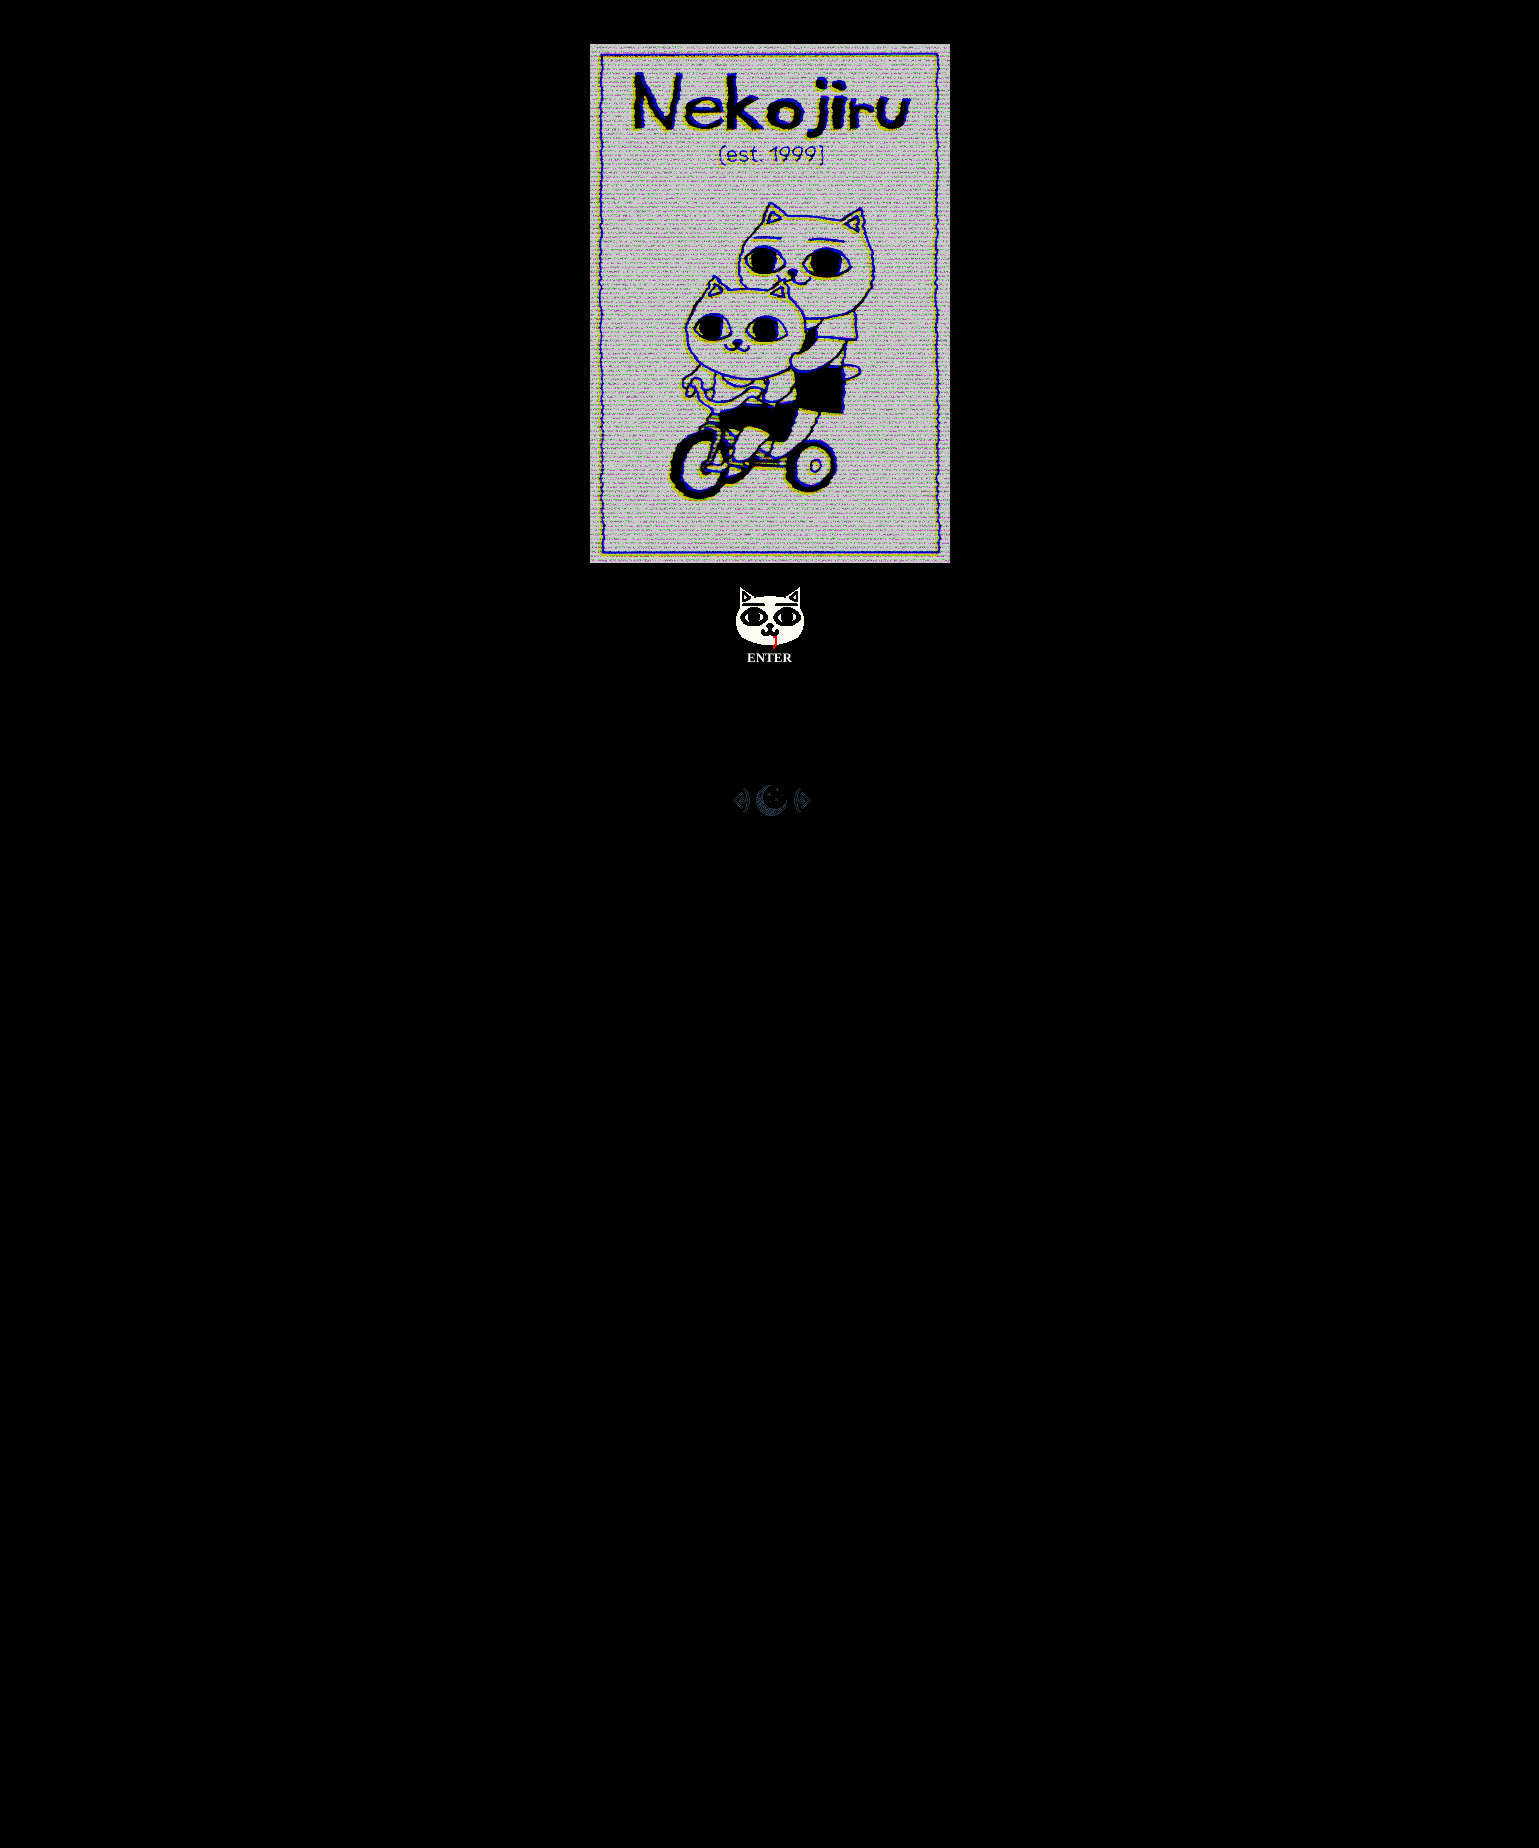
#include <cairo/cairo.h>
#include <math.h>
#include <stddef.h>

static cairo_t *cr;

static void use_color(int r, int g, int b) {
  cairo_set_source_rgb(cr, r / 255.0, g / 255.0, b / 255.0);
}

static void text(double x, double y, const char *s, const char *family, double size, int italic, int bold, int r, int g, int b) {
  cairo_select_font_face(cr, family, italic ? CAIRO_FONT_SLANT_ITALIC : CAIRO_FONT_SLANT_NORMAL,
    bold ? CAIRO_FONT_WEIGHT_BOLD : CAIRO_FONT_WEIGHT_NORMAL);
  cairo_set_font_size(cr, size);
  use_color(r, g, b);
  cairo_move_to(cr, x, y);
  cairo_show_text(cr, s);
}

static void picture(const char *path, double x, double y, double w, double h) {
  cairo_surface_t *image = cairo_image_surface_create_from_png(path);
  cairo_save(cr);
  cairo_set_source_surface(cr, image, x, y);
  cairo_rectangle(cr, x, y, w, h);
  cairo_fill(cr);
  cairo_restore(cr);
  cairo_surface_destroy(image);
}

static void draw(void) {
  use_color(0, 0, 0);
  cairo_paint(cr);
  picture("img_01.png", 590, 44, 360, 519);
  picture("img_02.png", 736, 587, 68, 62);
  picture("img_03.png", 733, 785, 78, 31);
  text(747, 662, "ENTER", "Liberation Serif", 13, 0, 1, 255, 255, 255);
}

int main(void) {
  cairo_surface_t *surface = cairo_image_surface_create(CAIRO_FORMAT_RGB24, 1539, 1848);
  cr = cairo_create(surface);
  cairo_font_options_t *options = cairo_font_options_create();
  cairo_font_options_set_hint_metrics(options, CAIRO_HINT_METRICS_OFF);
  cairo_font_options_set_hint_style(options, CAIRO_HINT_STYLE_NONE);
  cairo_set_font_options(cr, options);
  cairo_set_miter_limit(cr, 4);
  draw();
  cairo_surface_write_to_png(surface, "out.png");
  cairo_font_options_destroy(options);
  cairo_destroy(cr);
  cairo_surface_destroy(surface);
  return 0;
}
